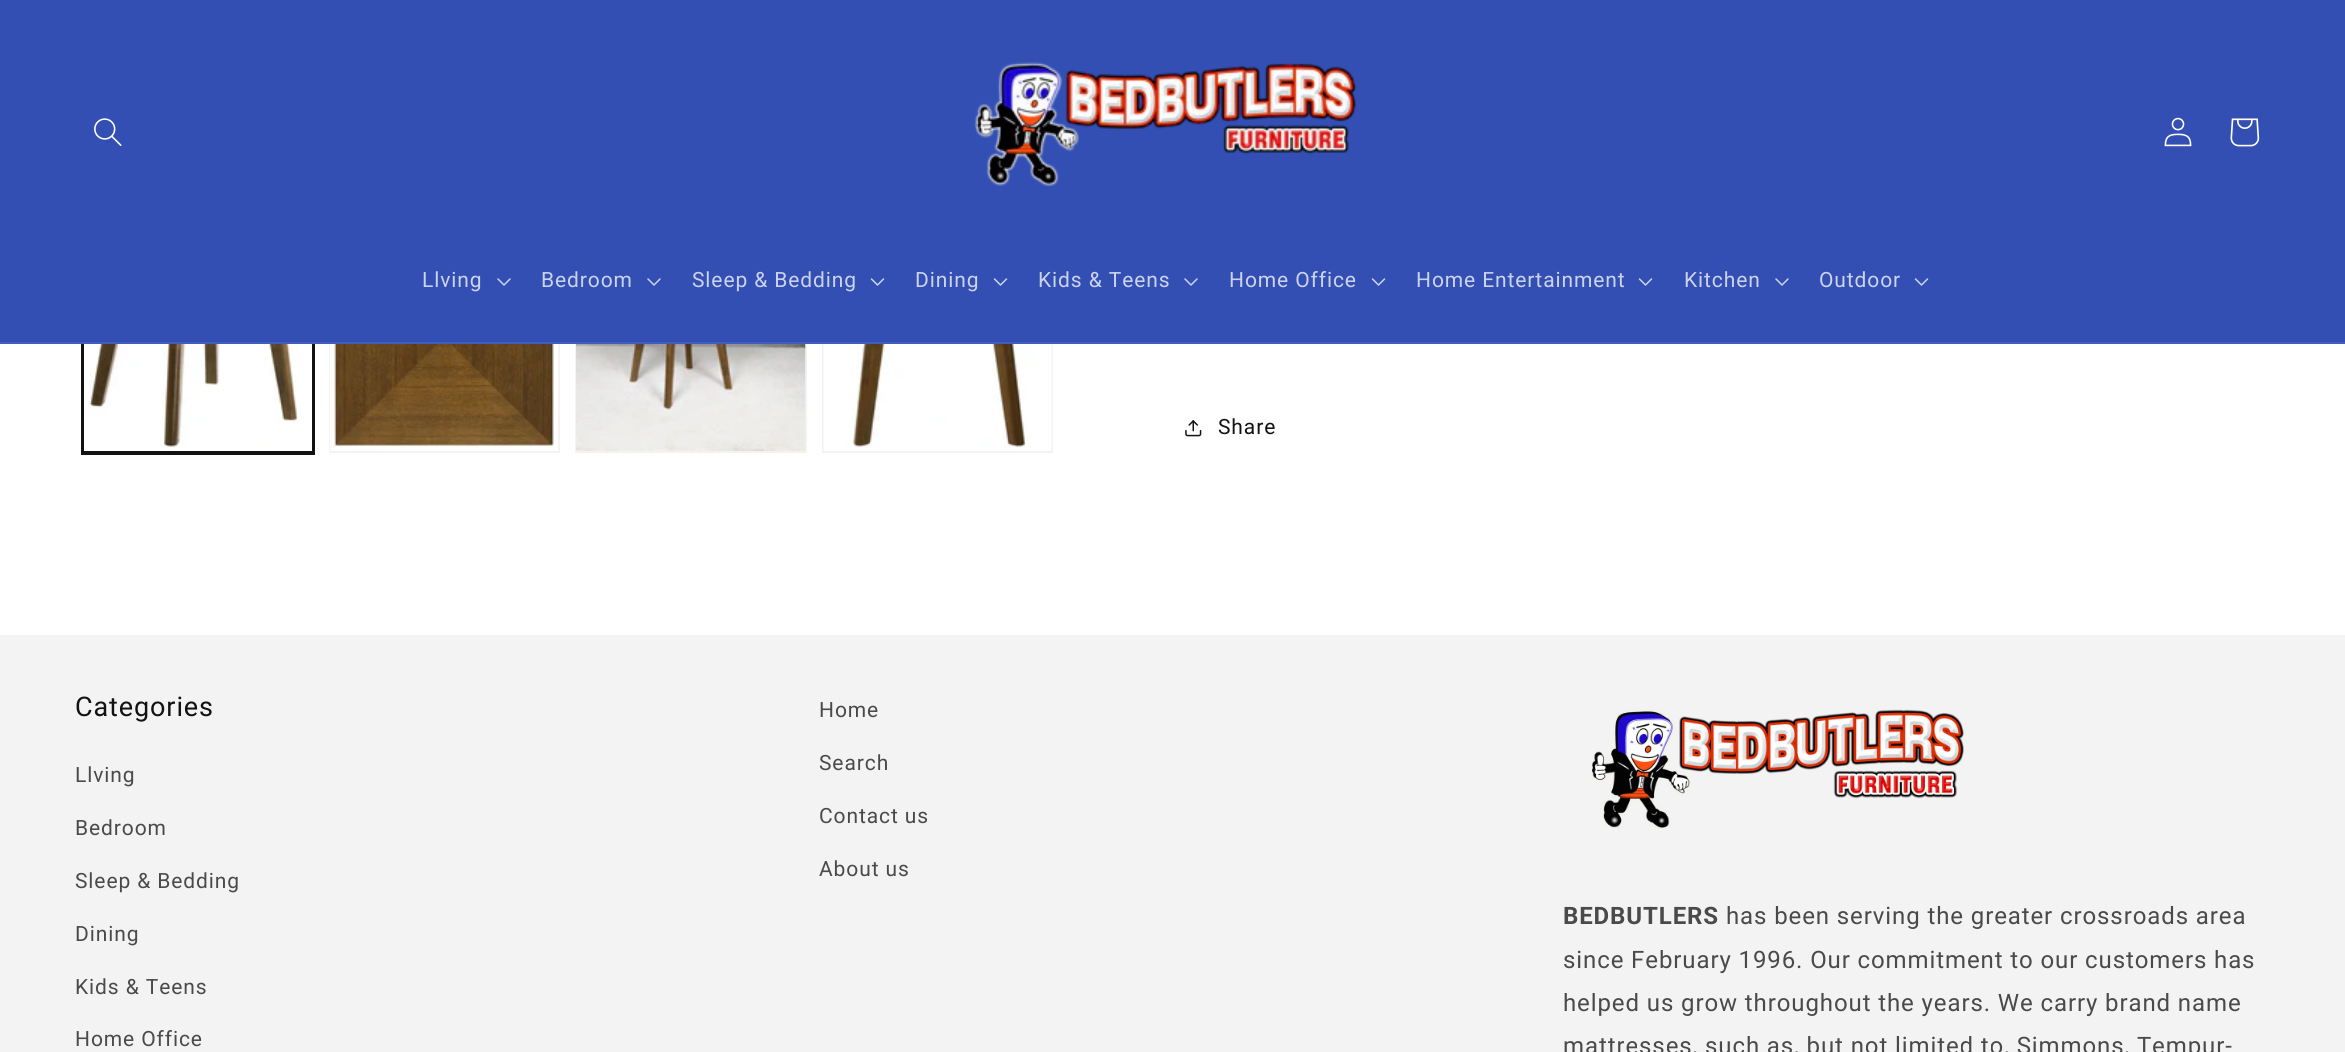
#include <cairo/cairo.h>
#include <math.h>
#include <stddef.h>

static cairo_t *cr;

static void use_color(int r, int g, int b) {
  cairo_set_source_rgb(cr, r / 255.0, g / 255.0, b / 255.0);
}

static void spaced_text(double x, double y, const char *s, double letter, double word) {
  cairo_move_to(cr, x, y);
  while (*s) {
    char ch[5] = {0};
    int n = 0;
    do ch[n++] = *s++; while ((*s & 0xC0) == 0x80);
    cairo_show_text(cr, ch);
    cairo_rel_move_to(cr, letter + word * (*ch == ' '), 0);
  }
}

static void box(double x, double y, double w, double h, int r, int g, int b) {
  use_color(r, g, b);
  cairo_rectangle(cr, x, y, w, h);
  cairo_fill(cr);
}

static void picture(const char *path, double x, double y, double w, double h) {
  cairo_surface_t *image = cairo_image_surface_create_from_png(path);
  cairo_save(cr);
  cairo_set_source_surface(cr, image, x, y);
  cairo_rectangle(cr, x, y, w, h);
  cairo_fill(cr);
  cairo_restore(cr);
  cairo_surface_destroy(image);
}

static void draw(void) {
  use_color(255, 255, 255);
  cairo_paint(cr);
  cairo_rectangle(cr, 82, 222, 232, 232);
  use_color(18, 18, 18);
  cairo_stroke(cr);
  cairo_rectangle(cr, 84, 223, 229, 229);
  cairo_stroke(cr);
  cairo_rectangle(cr, 330, 223, 229, 229);
  use_color(243, 243, 243);
  cairo_stroke(cr);
  cairo_rectangle(cr, 576, 223, 230, 229);
  cairo_stroke(cr);
  cairo_rectangle(cr, 823, 223, 229, 229);
  cairo_stroke(cr);
  box(0, 0, 2345, 342, 51, 79, 180);
  box(0, 342, 2345, 2, 67, 93, 186);
  picture("img_01.png", 94, 118, 28, 28);
  picture("img_02.png", 974, 62, 383, 125);
  picture("img_03.png", 2164, 117, 28, 30);
  picture("img_04.png", 2230, 118, 30, 29);
  picture("img_05.png", 497, 278, 14, 8);
  picture("img_05.png", 647, 278, 14, 8);
  picture("img_06.png", 870, 278, 15, 8);
  picture("img_06.png", 993, 278, 15, 8);
  picture("img_05.png", 1184, 278, 14, 8);
  picture("img_06.png", 1371, 278, 15, 8);
  picture("img_06.png", 1638, 278, 15, 8);
  picture("img_05.png", 1775, 278, 14, 8);
  picture("img_06.png", 1914, 278, 15, 8);
  picture("img_07.png", 84, 344, 228, 107);
  picture("img_08.png", 330, 344, 228, 107);
  picture("img_09.png", 576, 344, 230, 107);
  picture("img_10.png", 823, 344, 229, 107);
  picture("img_11.png", 1185, 420, 17, 17);
  box(0, 635, 2345, 417, 243, 243, 243);
  picture("img_12.png", 1591, 709, 373, 120);
  cairo_select_font_face(cr, "Roboto", CAIRO_FONT_SLANT_NORMAL, CAIRO_FONT_WEIGHT_NORMAL);
  cairo_set_font_size(cr, 21);
  use_color(204, 211, 236);
  spaced_text(422, 287, "Llving", 0.9, 0);
  spaced_text(541, 287, "Bedroom", 0.9, 0);
  spaced_text(692, 287, "Sleep & Bedding", 0.9, 0);
  spaced_text(915, 287, "Dining", 0.9, 0);
  spaced_text(1038, 287, "Kids & Teens", 0.9, 0);
  spaced_text(1229, 287, "Home Office", 0.9, 0);
  spaced_text(1416, 287, "Home Entertainment", 0.9, 0);
  spaced_text(1684, 287, "Kitchen", 0.9, 0);
  spaced_text(1819, 287, "Outdoor", 0.9, 0);
  use_color(18, 18, 18);
  spaced_text(1218, 434, "Share", 0.9, 0);
  cairo_set_font_size(cr, 27);
  spaced_text(75, 716, "Categories", 0.9, 0);
  cairo_set_font_size(cr, 21);
  use_color(74, 74, 74);
  spaced_text(75, 782, "Llving", 0.9, 0);
  spaced_text(75, 835, "Bedroom", 0.9, 0);
  spaced_text(75, 888, "Sleep & Bedding", 0.9, 0);
  spaced_text(75, 941, "Dining", 0.9, 0);
  spaced_text(75, 994, "Kids & Teens", 0.9, 0);
  spaced_text(75, 1046, "Home Office", 0.9, 0);
  spaced_text(819, 717, "Home", 0.9, 0);
  spaced_text(819, 770, "Search", 0.9, 0);
  spaced_text(819, 823, "Contact us", 0.9, 0);
  spaced_text(819, 876, "About us", 0.9, 0);
  cairo_select_font_face(cr, "Roboto", CAIRO_FONT_SLANT_NORMAL, CAIRO_FONT_WEIGHT_BOLD);
  cairo_set_font_size(cr, 24);
  spaced_text(1563, 924, "BEDBUTLERS", 0.9, 0);
  cairo_select_font_face(cr, "Roboto", CAIRO_FONT_SLANT_NORMAL, CAIRO_FONT_WEIGHT_NORMAL);
  spaced_text(1726, 924, "has been serving the greater crossroads area", 0.9, 0);
  spaced_text(1563, 968, "since February 1996. Our commitment to our customers has", 0.9, 0);
  spaced_text(1563, 1011, "helped us grow throughout the years. We carry brand name", 0.9, 0);
  spaced_text(1563, 1054, "mattresses, such as, but not limited to, Simmons, Tempur-", 0.9, 0);
}

int main(void) {
  cairo_surface_t *surface = cairo_image_surface_create(CAIRO_FORMAT_RGB24, 2345, 1052);
  cr = cairo_create(surface);
  cairo_font_options_t *options = cairo_font_options_create();
  cairo_font_options_set_hint_metrics(options, CAIRO_HINT_METRICS_OFF);
  cairo_font_options_set_hint_style(options, CAIRO_HINT_STYLE_NONE);
  cairo_set_font_options(cr, options);
  cairo_set_miter_limit(cr, 4);
  draw();
  cairo_surface_write_to_png(surface, "out.png");
  cairo_font_options_destroy(options);
  cairo_destroy(cr);
  cairo_surface_destroy(surface);
  return 0;
}
